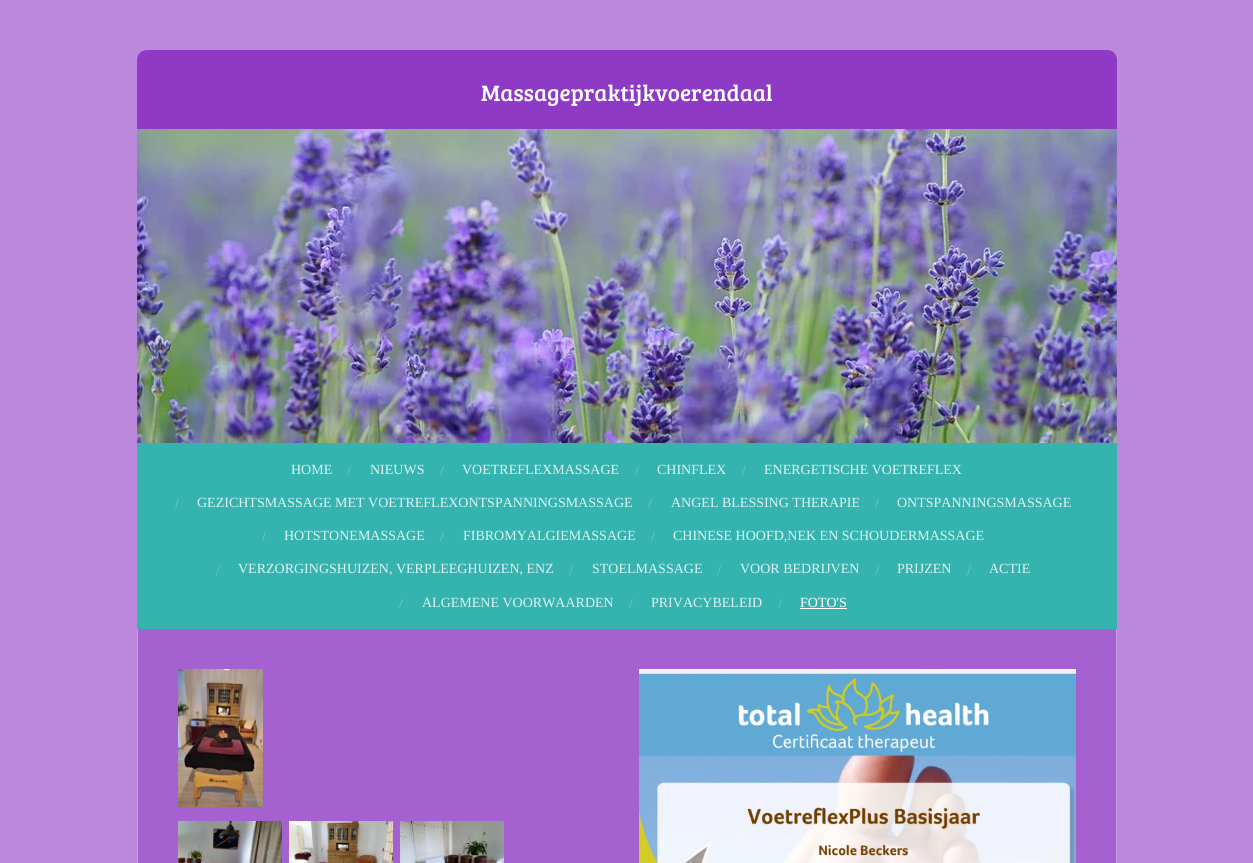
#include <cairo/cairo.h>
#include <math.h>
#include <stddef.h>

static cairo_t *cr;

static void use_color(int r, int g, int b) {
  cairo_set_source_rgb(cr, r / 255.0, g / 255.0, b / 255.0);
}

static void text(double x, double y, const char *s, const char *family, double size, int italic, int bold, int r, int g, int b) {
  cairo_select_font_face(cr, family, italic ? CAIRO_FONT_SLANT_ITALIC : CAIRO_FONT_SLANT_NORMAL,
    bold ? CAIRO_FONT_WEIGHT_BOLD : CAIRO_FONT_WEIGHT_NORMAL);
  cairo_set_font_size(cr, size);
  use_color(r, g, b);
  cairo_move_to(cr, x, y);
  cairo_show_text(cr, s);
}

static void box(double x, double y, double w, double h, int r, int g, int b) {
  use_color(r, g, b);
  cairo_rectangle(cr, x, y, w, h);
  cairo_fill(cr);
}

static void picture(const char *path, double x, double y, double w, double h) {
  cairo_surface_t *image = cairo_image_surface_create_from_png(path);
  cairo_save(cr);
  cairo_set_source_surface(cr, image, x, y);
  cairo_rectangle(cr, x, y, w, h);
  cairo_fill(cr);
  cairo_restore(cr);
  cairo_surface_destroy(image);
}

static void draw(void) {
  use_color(187, 136, 220);
  cairo_paint(cr);
  use_color(143, 58, 196);
  cairo_new_path(cr);
  cairo_move_to(cr, 147, 50);
  cairo_line_to(cr, 1107, 50);
  cairo_curve_to(cr, 1112.5, 50, 1117, 54.5, 1117, 60);
  cairo_line_to(cr, 1117, 129);
  cairo_line_to(cr, 137, 129);
  cairo_line_to(cr, 137, 60);
  cairo_curve_to(cr, 137, 54.5, 141.5, 50, 147, 50);
  cairo_close_path(cr);
  cairo_fill(cr);
  picture("img_01.png", 137, 129, 980, 314);
  box(137, 443, 980, 186, 53, 179, 175);
  box(800, 608, 47, 1, 255, 255, 255);
  box(138, 629, 978, 234, 165, 97, 208);
  box(1116, 629, 1, 234, 199, 156, 226);
  box(137, 629, 1, 234, 199, 156, 226);
  picture("img_02.png", 178, 669, 85, 138);
  picture("img_03.png", 178, 821, 104, 42);
  picture("img_04.png", 289, 821, 104, 42);
  picture("img_05.png", 400, 821, 104, 42);
  picture("img_06.png", 639, 669, 437, 194);
  text(481, 101, "Massagepraktijkvoerendaal", "Bree Serif", 23, 0, 0, 255, 255, 255);
  text(291, 474, "HOME", "Liberation Serif", 14, 0, 0, 218, 244, 243);
  text(347, 475, "/", "Liberation Serif", 14, 0, 0, 100, 209, 205);
  text(370, 474, "NIEUWS", "Liberation Serif", 14, 0, 0, 218, 244, 243);
  text(440, 475, "/", "Liberation Serif", 14, 0, 0, 100, 209, 205);
  text(462, 474, "VOETREFLEXMASSAGE", "Liberation Serif", 14, 0, 0, 218, 244, 243);
  text(635, 475, "/", "Liberation Serif", 14, 0, 0, 100, 209, 205);
  text(657, 474, "CHINFLEX", "Liberation Serif", 14, 0, 0, 218, 244, 243);
  text(742, 475, "/", "Liberation Serif", 14, 0, 0, 100, 209, 205);
  text(764, 474, "ENERGETISCHE VOETREFLEX", "Liberation Serif", 14, 0, 0, 218, 244, 243);
  text(175, 508, "/", "Liberation Serif", 14, 0, 0, 100, 209, 205);
  text(197, 507, "GEZICHTSMASSAGE MET VOETREFLEXONTSPANNINGSMASSAGE", "Liberation Serif", 14, 0, 0, 218, 244, 243);
  text(648, 508, "/", "Liberation Serif", 14, 0, 0, 100, 209, 205);
  text(671, 507, "ANGEL BLESSING THERAPIE", "Liberation Serif", 14, 0, 0, 218, 244, 243);
  text(875, 508, "/", "Liberation Serif", 14, 0, 0, 100, 209, 205);
  text(897, 507, "ONTSPANNINGSMASSAGE", "Liberation Serif", 14, 0, 0, 218, 244, 243);
  text(262, 541, "/", "Liberation Serif", 14, 0, 0, 100, 209, 205);
  text(284, 540, "HOTSTONEMASSAGE", "Liberation Serif", 14, 0, 0, 218, 244, 243);
  text(440, 541, "/", "Liberation Serif", 14, 0, 0, 100, 209, 205);
  text(463, 540, "FIBROMYALGIEMASSAGE", "Liberation Serif", 14, 0, 0, 218, 244, 243);
  text(651, 541, "/", "Liberation Serif", 14, 0, 0, 100, 209, 205);
  text(673, 540, "CHINESE HOOFD,NEK EN SCHOUDERMASSAGE", "Liberation Serif", 14, 0, 0, 218, 244, 243);
  text(216, 575, "/", "Liberation Serif", 14, 0, 0, 100, 209, 205);
  text(238, 573, "VERZORGINGSHUIZEN, VERPLEEGHUIZEN, ENZ", "Liberation Serif", 14, 0, 0, 218, 244, 243);
  text(569, 575, "/", "Liberation Serif", 14, 0, 0, 100, 209, 205);
  text(592, 573, "STOELMASSAGE", "Liberation Serif", 14, 0, 0, 218, 244, 243);
  text(717, 575, "/", "Liberation Serif", 14, 0, 0, 100, 209, 205);
  text(740, 573, "VOOR BEDRIJVEN", "Liberation Serif", 14, 0, 0, 218, 244, 243);
  text(875, 575, "/", "Liberation Serif", 14, 0, 0, 100, 209, 205);
  text(897, 573, "PRIJZEN", "Liberation Serif", 14, 0, 0, 218, 244, 243);
  text(967, 575, "/", "Liberation Serif", 14, 0, 0, 100, 209, 205);
  text(989, 573, "ACTIE", "Liberation Serif", 14, 0, 0, 218, 244, 243);
  text(399, 608, "/", "Liberation Serif", 14, 0, 0, 100, 209, 205);
  text(422, 607, "ALGEMENE VOORWAARDEN", "Liberation Serif", 14, 0, 0, 218, 244, 243);
  text(629, 608, "/", "Liberation Serif", 14, 0, 0, 100, 209, 205);
  text(651, 607, "PRIVACYBELEID", "Liberation Serif", 14, 0, 0, 218, 244, 243);
  text(778, 608, "/", "Liberation Serif", 14, 0, 0, 100, 209, 205);
  text(800, 607, "FOTO'S", "Liberation Serif", 14, 0, 0, 255, 255, 255);
}

int main(void) {
  cairo_surface_t *surface = cairo_image_surface_create(CAIRO_FORMAT_RGB24, 1253, 863);
  cr = cairo_create(surface);
  cairo_font_options_t *options = cairo_font_options_create();
  cairo_font_options_set_hint_metrics(options, CAIRO_HINT_METRICS_OFF);
  cairo_font_options_set_hint_style(options, CAIRO_HINT_STYLE_NONE);
  cairo_set_font_options(cr, options);
  cairo_set_miter_limit(cr, 4);
  draw();
  cairo_surface_write_to_png(surface, "out.png");
  cairo_font_options_destroy(options);
  cairo_destroy(cr);
  cairo_surface_destroy(surface);
  return 0;
}
